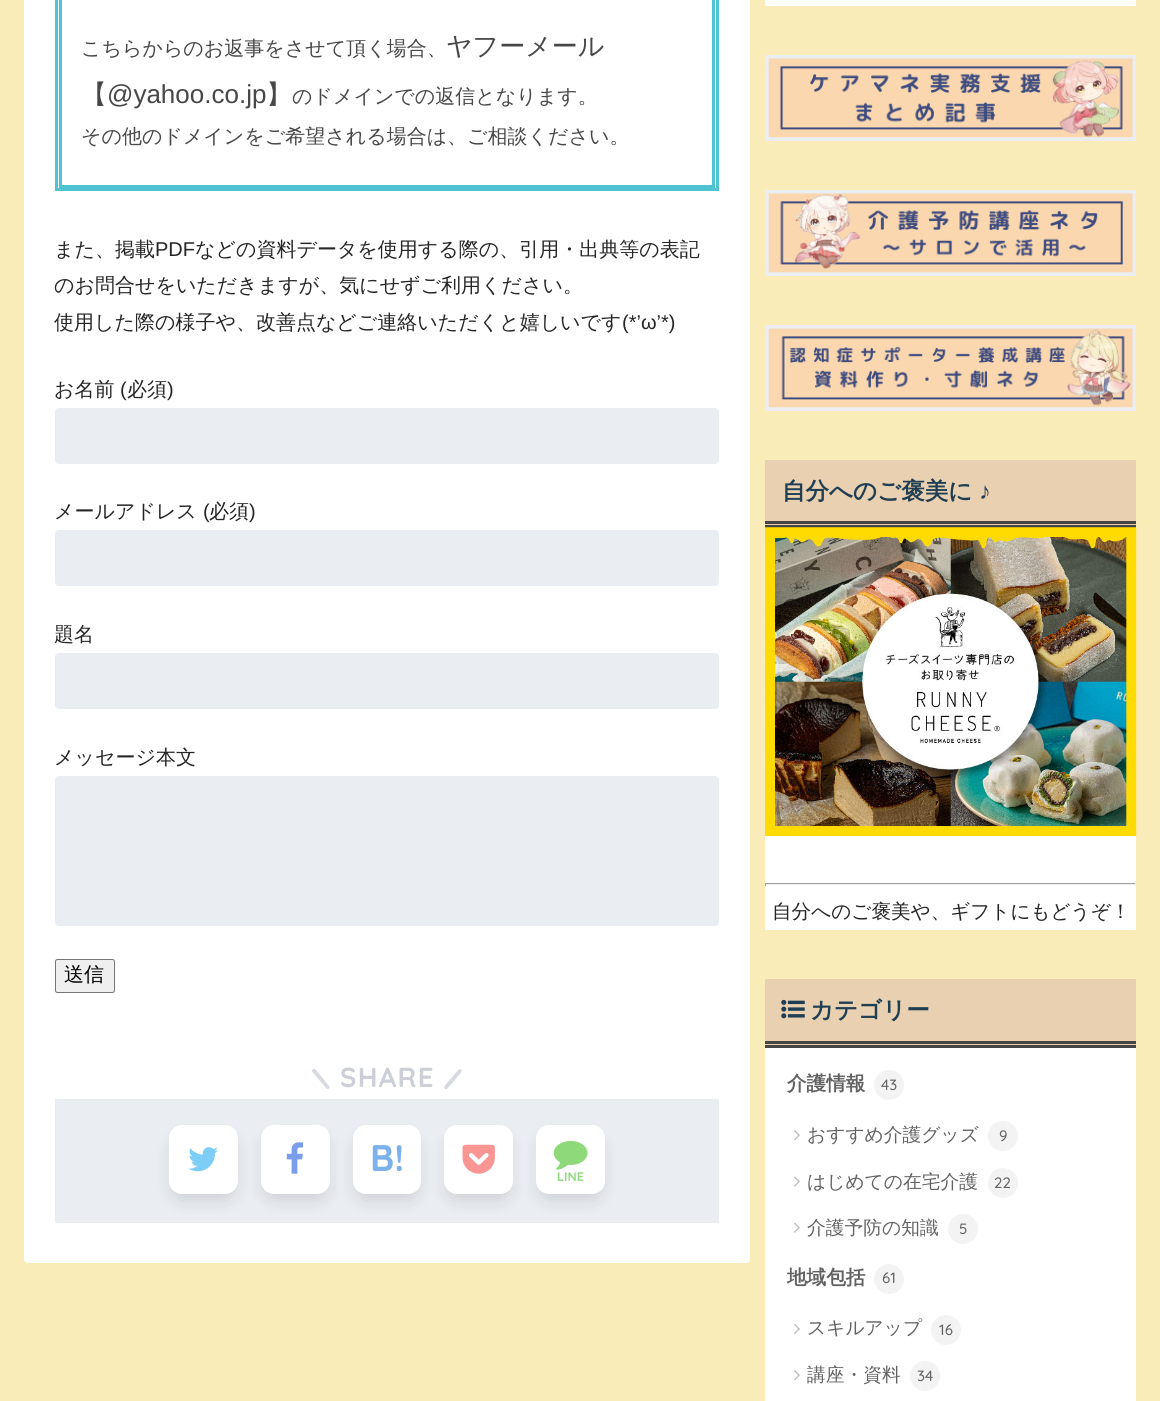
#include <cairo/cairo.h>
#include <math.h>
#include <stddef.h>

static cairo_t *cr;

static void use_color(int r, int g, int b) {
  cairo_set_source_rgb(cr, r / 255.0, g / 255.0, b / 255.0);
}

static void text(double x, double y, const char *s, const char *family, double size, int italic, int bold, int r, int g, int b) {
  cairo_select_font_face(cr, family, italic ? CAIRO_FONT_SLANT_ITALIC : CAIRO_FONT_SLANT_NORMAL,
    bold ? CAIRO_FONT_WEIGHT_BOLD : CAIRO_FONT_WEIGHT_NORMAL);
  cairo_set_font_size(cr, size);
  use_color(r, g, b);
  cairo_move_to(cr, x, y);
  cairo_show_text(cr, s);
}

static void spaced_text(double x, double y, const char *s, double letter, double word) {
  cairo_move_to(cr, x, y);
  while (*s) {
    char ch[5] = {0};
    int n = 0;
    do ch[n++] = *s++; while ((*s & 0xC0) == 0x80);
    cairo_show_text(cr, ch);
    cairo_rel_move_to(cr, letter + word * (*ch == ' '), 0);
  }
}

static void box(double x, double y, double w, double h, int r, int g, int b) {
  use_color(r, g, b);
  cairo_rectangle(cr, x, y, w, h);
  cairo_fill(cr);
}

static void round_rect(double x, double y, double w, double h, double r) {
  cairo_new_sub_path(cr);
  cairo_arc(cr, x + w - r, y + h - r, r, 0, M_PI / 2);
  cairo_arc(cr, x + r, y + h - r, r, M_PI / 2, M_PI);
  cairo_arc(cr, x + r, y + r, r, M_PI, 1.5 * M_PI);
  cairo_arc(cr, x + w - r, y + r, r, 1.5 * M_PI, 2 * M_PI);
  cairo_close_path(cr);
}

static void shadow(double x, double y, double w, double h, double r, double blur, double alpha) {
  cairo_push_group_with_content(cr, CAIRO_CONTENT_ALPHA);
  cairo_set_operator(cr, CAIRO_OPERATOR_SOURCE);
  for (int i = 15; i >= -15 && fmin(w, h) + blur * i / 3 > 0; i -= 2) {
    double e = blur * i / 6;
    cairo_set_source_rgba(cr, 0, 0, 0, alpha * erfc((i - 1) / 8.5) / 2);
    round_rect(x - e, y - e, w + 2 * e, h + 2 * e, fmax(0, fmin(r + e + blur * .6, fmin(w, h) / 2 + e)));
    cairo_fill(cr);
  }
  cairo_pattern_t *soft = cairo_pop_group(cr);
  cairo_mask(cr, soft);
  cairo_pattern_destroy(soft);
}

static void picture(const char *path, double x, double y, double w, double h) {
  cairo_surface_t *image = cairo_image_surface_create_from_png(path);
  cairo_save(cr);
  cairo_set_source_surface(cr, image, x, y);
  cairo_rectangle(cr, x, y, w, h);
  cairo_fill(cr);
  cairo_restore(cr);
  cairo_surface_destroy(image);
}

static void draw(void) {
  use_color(249, 236, 184);
  cairo_paint(cr);
  use_color(255, 255, 255);
  round_rect(24, -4, 726, 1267, 4);
  cairo_fill(cr);
  cairo_rectangle(cr, 56.5, -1.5, 661, 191);
  use_color(78, 196, 211);
  cairo_set_line_width(cr, 3);
  cairo_stroke(cr);
  cairo_rectangle(cr, 60.5, -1.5, 653, 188);
  cairo_stroke(cr);
  use_color(234, 237, 242);
  round_rect(55, 408, 664, 56, 4);
  cairo_fill(cr);
  round_rect(55, 530, 664, 56, 4);
  cairo_fill(cr);
  round_rect(55, 653, 664, 56, 4);
  cairo_fill(cr);
  round_rect(55, 776, 664, 150, 4);
  cairo_fill(cr);
  use_color(239, 239, 239);
  round_rect(55.5, 959.5, 59, 33, 2);
  cairo_fill_preserve(cr);
  use_color(118, 118, 118);
  cairo_set_line_width(cr, 1);
  cairo_stroke(cr);
  use_color(216, 218, 225);
  cairo_new_path(cr);
  cairo_move_to(cr, 315.5, 1069.5);
  cairo_line_to(cr, 327, 1083.5);
  cairo_curve_to(cr, 327.5, 1084.5, 331, 1087, 329, 1088.5);
  cairo_curve_to(cr, 327, 1090.5, 325, 1086.5, 324, 1085.5);
  cairo_line_to(cr, 312, 1071.5);
  cairo_curve_to(cr, 311.5, 1069.5, 314, 1068, 315.5, 1069.5);
  cairo_close_path(cr);
  cairo_fill(cr);
  cairo_new_path(cr);
  cairo_move_to(cr, 444.5, 1086);
  cairo_line_to(cr, 456, 1072.5);
  cairo_curve_to(cr, 457, 1071.5, 459, 1068, 461, 1069.5);
  cairo_curve_to(cr, 463, 1071, 460, 1074, 459, 1075);
  cairo_line_to(cr, 447, 1089);
  cairo_curve_to(cr, 445, 1090, 443.5, 1087.5, 444.5, 1086);
  cairo_close_path(cr);
  cairo_fill(cr);
  box(55, 1099, 664, 124, 234, 237, 242);
  use_color(0, 0, 0);
  shadow(174, 1139, 59, 59, 8, 9.5, 0.15);
  use_color(255, 255, 255);
  round_rect(169, 1125, 69, 69, 13);
  cairo_fill(cr);
  picture("img_01.png", 188, 1147, 30, 25);
  use_color(0, 0, 0);
  shadow(266, 1139, 59, 59, 8, 9.5, 0.15);
  use_color(255, 255, 255);
  round_rect(261, 1125, 69, 69, 13);
  cairo_fill(cr);
  picture("img_02.png", 286, 1142, 18, 32);
  use_color(0, 0, 0);
  shadow(358, 1139, 58, 59, 8, 9.5, 0.15);
  use_color(255, 255, 255);
  round_rect(353, 1125, 68, 69, 13);
  cairo_fill(cr);
  use_color(0, 0, 0);
  shadow(449, 1139, 59, 59, 8, 9.5, 0.15);
  use_color(255, 255, 255);
  round_rect(444, 1125, 69, 69, 13);
  cairo_fill(cr);
  picture("img_03.png", 462, 1144, 33, 30);
  use_color(0, 0, 0);
  shadow(541, 1139, 59, 59, 8, 9.5, 0.15);
  use_color(255, 255, 255);
  round_rect(536, 1125, 69, 69, 13);
  cairo_fill(cr);
  picture("img_04.png", 553, 1140, 35, 30);
  box(765, 0, 371, 6, 255, 255, 255);
  cairo_rectangle(cr, 767, 57, 367, 82);
  use_color(234, 237, 242);
  cairo_set_line_width(cr, 4);
  cairo_stroke(cr);
  picture("img_05.png", 768, 58, 365, 80);
  cairo_rectangle(cr, 767, 192, 367, 82);
  cairo_stroke(cr);
  picture("img_06.png", 768, 193, 365, 80);
  cairo_rectangle(cr, 767, 327, 367, 82);
  cairo_stroke(cr);
  picture("img_07.png", 768, 328, 365, 80);
  box(765, 836, 371, 94, 255, 255, 255);
  box(765, 460, 371, 65, 232, 208, 176);
  box(765, 521, 371, 3, 69, 69, 69);
  box(765, 525, 371, 3, 69, 69, 69);
  picture("img_08.png", 765, 527, 372, 309);
  box(765, 883, 371, 1, 159, 159, 159);
  box(1135, 883, 1, 3, 238, 238, 238);
  box(765, 884, 371, 1, 238, 238, 238);
  box(765, 883, 1, 3, 159, 159, 159);
  box(765, 1048, 371, 353, 255, 255, 255);
  box(765, 979, 371, 66, 232, 208, 176);
  box(765, 1041, 371, 3, 69, 69, 69);
  box(765, 1045, 371, 3, 69, 69, 69);
  picture("img_09.png", 781, 999, 24, 20);
  use_color(243, 243, 243);
  cairo_arc(cr, 889, 1085, 15, 0, 2 * M_PI);
  cairo_fill(cr);
  picture("img_10.png", 794, 1130, 6, 11);
  cairo_arc(cr, 1003, 1136, 15, 0, 2 * M_PI);
  cairo_fill(cr);
  picture("img_11.png", 794, 1176, 6, 11);
  cairo_arc(cr, 1003, 1183, 15, 0, 2 * M_PI);
  cairo_fill(cr);
  picture("img_12.png", 794, 1222, 6, 11);
  cairo_arc(cr, 963, 1229, 15, 0, 2 * M_PI);
  cairo_fill(cr);
  cairo_arc(cr, 889, 1279, 15, 0, 2 * M_PI);
  cairo_fill(cr);
  picture("img_13.png", 794, 1323, 6, 12);
  cairo_arc(cr, 946, 1330, 15, 0, 2 * M_PI);
  cairo_fill(cr);
  picture("img_10.png", 794, 1370, 6, 11);
  cairo_arc(cr, 925, 1376, 15, 0, 2 * M_PI);
  cairo_fill(cr);
  text(81, 55, "こちらからのお返事をさせて頂く場合、", "WenQuanYi Zen Hei Medium", 20, 0, 0, 71, 71, 71);
  text(446, 55, "ヤフーメール", "WenQuanYi Zen Hei Medium", 26, 0, 0, 71, 71, 71);
  text(81, 103, "【", "WenQuanYi Zen Hei Medium", 26, 0, 0, 71, 71, 71);
  text(107, 103, "@yahoo.co.jp", "Liberation Sans", 26, 0, 0, 71, 71, 71);
  text(266, 103, "】", "WenQuanYi Zen Hei Medium", 26, 0, 0, 71, 71, 71);
  text(292, 103, "のドメインでの返信となります。", "WenQuanYi Zen Hei Medium", 20, 0, 0, 71, 71, 71);
  text(81, 143, "その他のドメインをご希望される場合は、ご相談ください。", "WenQuanYi Zen Hei Medium", 20, 0, 0, 71, 71, 71);
  text(54, 256, "また、掲載", "WenQuanYi Zen Hei Medium", 20, 0, 0, 37, 37, 37);
  text(155, 256, "PDF", "Liberation Sans", 20, 0, 0, 37, 37, 37);
  text(195, 256, "などの資料データを使用する際の、引用・出典等の表記", "WenQuanYi Zen Hei Medium", 20, 0, 0, 37, 37, 37);
  text(54, 292, "のお問合せをいただきますが、気にせずご利用ください。", "WenQuanYi Zen Hei Medium", 20, 0, 0, 37, 37, 37);
  text(54, 329, "使用した際の様子や、改善点などご連絡いただくと嬉しいです", "WenQuanYi Zen Hei Medium", 20, 0, 0, 37, 37, 37);
  text(622, 329, "(*’ω’*)", "Liberation Sans", 20, 0, 0, 37, 37, 37);
  text(54, 396, "お名前", "WenQuanYi Zen Hei Medium", 20, 0, 0, 37, 37, 37);
  text(120, 396, "(", "Liberation Sans", 20, 0, 0, 37, 37, 37);
  text(127, 396, "必須", "WenQuanYi Zen Hei Medium", 20, 0, 0, 37, 37, 37);
  text(167, 396, ")", "Liberation Sans", 20, 0, 0, 37, 37, 37);
  text(54, 518, "メールアドレス", "WenQuanYi Zen Hei Medium", 20, 0, 0, 37, 37, 37);
  text(203, 518, "(", "Liberation Sans", 20, 0, 0, 37, 37, 37);
  text(209, 518, "必須", "WenQuanYi Zen Hei Medium", 20, 0, 0, 37, 37, 37);
  text(249, 518, ")", "Liberation Sans", 20, 0, 0, 37, 37, 37);
  text(54, 641, "題名", "WenQuanYi Zen Hei Medium", 20, 0, 0, 37, 37, 37);
  text(54, 764, "メッセージ本文", "WenQuanYi Zen Hei Medium", 20, 0, 0, 37, 37, 37);
  text(64, 981, "送信", "WenQuanYi Zen Hei Medium", 20, 0, 0, 0, 0, 0);
  cairo_select_font_face(cr, "Quicksand", CAIRO_FONT_SLANT_NORMAL, CAIRO_FONT_WEIGHT_BOLD);
  cairo_set_font_size(cr, 27.5);
  use_color(204, 207, 215);
  spaced_text(340, 1087, "SHARE", 1.25, 0);
  text(370, 1171, "B!", "Quicksand", 37, 0, 1, 124, 177, 236);
  text(557, 1181, "LINE", "Quicksand", 12.5, 0, 1, 142, 217, 122);
  text(782, 499, "自分へのご褒美に", "WenQuanYi Zen Hei", 23.5, 0, 1, 31, 62, 84);
  text(979, 499, "♪", "Liberation Sans", 23.5, 0, 1, 31, 62, 84);
  text(772, 918, "自分へのご褒美や、ギフトにもどうぞ！", "WenQuanYi Zen Hei Medium", 19.6, 0, 0, 37, 37, 37);
  text(810, 1018, "カテゴリー", "WenQuanYi Zen Hei", 23.5, 0, 1, 31, 62, 84);
  text(787, 1090, "介護情報", "WenQuanYi Zen Hei", 19.6, 0, 1, 98, 98, 98);
  text(881, 1090, "43", "Quicksand Medium", 15, 0, 0, 98, 98, 98);
  text(807, 1141, "おすすめ介護グッズ", "WenQuanYi Zen Hei Medium", 18.75, 0, 0, 98, 98, 98);
  text(999, 1141, "9", "Quicksand Medium", 15, 0, 0, 98, 98, 98);
  text(807, 1188, "はじめての在宅介護", "WenQuanYi Zen Hei Medium", 18.75, 0, 0, 98, 98, 98);
  text(994, 1188, "22", "Quicksand Medium", 15, 0, 0, 98, 98, 98);
  text(807, 1234, "介護予防の知識", "WenQuanYi Zen Hei Medium", 18.75, 0, 0, 98, 98, 98);
  text(959, 1234, "5", "Quicksand Medium", 15, 0, 0, 98, 98, 98);
  text(787, 1284, "地域包括", "WenQuanYi Zen Hei", 19.6, 0, 1, 98, 98, 98);
  text(882, 1283, "61", "Quicksand Medium", 15, 0, 0, 98, 98, 98);
  text(807, 1334, "スキルアップ", "WenQuanYi Zen Hei Medium", 18.75, 0, 0, 98, 98, 98);
  text(939, 1335, "16", "Quicksand Medium", 15, 0, 0, 98, 98, 98);
  text(807, 1381, "講座・資料", "WenQuanYi Zen Hei Medium", 18.75, 0, 0, 98, 98, 98);
  text(917, 1381, "34", "Quicksand Medium", 15, 0, 0, 98, 98, 98);
}

int main(void) {
  cairo_surface_t *surface = cairo_image_surface_create(CAIRO_FORMAT_RGB24, 1160, 1401);
  cr = cairo_create(surface);
  cairo_font_options_t *options = cairo_font_options_create();
  cairo_font_options_set_hint_metrics(options, CAIRO_HINT_METRICS_OFF);
  cairo_font_options_set_hint_style(options, CAIRO_HINT_STYLE_NONE);
  cairo_set_font_options(cr, options);
  cairo_set_miter_limit(cr, 4);
  draw();
  cairo_surface_write_to_png(surface, "out.png");
  cairo_font_options_destroy(options);
  cairo_destroy(cr);
  cairo_surface_destroy(surface);
  return 0;
}
